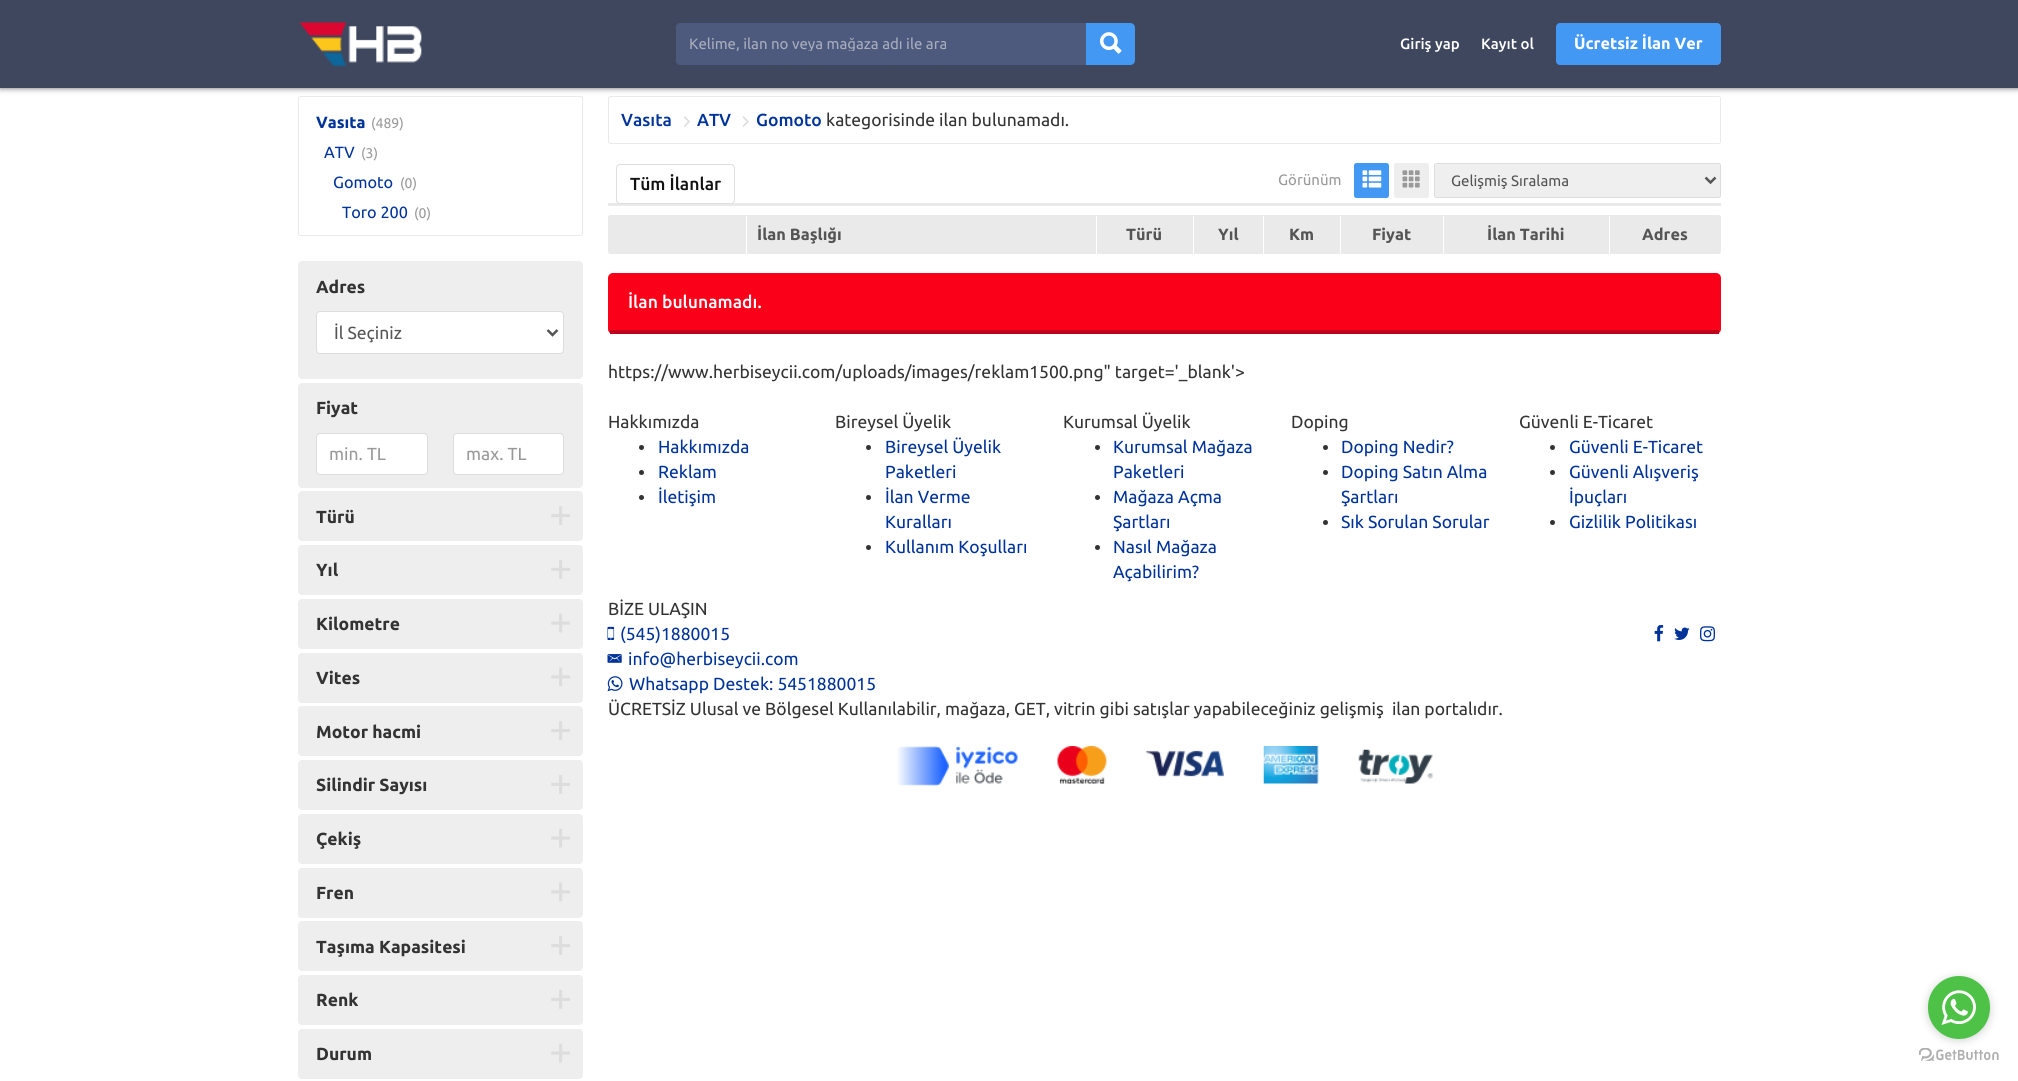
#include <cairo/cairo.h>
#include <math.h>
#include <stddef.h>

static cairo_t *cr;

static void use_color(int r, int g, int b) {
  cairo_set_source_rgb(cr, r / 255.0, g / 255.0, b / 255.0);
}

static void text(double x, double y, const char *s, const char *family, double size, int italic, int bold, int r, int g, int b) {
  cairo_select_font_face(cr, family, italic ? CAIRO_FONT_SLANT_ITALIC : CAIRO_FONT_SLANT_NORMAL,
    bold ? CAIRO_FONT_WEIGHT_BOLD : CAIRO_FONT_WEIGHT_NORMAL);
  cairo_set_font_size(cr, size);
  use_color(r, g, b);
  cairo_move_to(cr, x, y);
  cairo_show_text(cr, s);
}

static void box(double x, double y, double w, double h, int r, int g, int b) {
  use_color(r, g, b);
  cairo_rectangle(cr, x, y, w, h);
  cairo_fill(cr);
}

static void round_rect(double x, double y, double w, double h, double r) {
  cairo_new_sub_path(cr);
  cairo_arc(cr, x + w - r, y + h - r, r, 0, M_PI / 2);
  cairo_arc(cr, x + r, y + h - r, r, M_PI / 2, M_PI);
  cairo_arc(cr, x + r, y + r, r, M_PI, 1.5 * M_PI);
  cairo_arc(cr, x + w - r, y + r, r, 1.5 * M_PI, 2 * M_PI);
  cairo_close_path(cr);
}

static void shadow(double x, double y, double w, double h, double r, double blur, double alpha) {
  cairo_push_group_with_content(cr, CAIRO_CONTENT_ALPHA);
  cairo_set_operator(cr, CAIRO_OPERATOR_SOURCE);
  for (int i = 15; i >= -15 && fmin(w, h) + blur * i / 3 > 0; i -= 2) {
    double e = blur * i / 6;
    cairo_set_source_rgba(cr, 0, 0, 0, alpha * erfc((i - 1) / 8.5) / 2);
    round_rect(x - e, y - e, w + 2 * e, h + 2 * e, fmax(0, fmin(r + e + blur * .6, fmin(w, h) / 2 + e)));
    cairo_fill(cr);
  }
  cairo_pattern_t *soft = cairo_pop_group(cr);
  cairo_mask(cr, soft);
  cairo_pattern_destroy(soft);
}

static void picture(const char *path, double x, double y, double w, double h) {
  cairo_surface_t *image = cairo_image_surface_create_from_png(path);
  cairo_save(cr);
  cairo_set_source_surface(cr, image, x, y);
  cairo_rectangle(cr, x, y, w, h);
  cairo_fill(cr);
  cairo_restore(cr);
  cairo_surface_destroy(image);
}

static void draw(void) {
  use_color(255, 255, 255);
  cairo_paint(cr);
  round_rect(298.5, 96.5, 284, 139, 2);
  use_color(234, 234, 234);
  cairo_set_line_width(cr, 1);
  cairo_stroke(cr);
  round_rect(608.5, 96.5, 1112, 47, 2);
  cairo_stroke(cr);
  use_color(0, 0, 0);
  shadow(0, 0, 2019, 88, 0, 3, 0.6);
  box(0, 0, 2018, 88, 63, 71, 95);
  picture("img_01.png", 299, 22, 123, 45);
  use_color(78, 90, 125);
  cairo_new_path(cr);
  cairo_move_to(cr, 680, 23);
  cairo_line_to(cr, 1088, 23);
  cairo_line_to(cr, 1088, 65);
  cairo_line_to(cr, 680, 65);
  cairo_curve_to(cr, 678, 65, 676, 63, 676, 61);
  cairo_line_to(cr, 676, 27);
  cairo_curve_to(cr, 676, 25, 678, 23, 680, 23);
  cairo_close_path(cr);
  cairo_fill(cr);
  use_color(67, 152, 244);
  cairo_new_path(cr);
  cairo_move_to(cr, 1086, 23);
  cairo_line_to(cr, 1130, 23);
  cairo_curve_to(cr, 1133, 23, 1135, 25, 1135, 28);
  cairo_line_to(cr, 1135, 60);
  cairo_curve_to(cr, 1135, 63, 1133, 65, 1130, 65);
  cairo_line_to(cr, 1086, 65);
  cairo_close_path(cr);
  cairo_fill(cr);
  picture("img_02.png", 1100, 32, 22, 22);
  round_rect(1556, 23, 165, 42, 4);
  cairo_fill(cr);
  use_color(238, 238, 238);
  cairo_new_path(cr);
  cairo_move_to(cr, 302, 261);
  cairo_line_to(cr, 579, 261);
  cairo_curve_to(cr, 581, 261, 583, 263, 583, 265);
  cairo_line_to(cr, 583, 311);
  cairo_line_to(cr, 298, 311);
  cairo_line_to(cr, 298, 265);
  cairo_curve_to(cr, 298, 263, 300, 261, 302, 261);
  cairo_close_path(cr);
  cairo_fill(cr);
  cairo_new_path(cr);
  cairo_move_to(cr, 298, 311);
  cairo_line_to(cr, 583, 311);
  cairo_line_to(cr, 583, 375);
  cairo_curve_to(cr, 583, 377, 581, 379, 579, 379);
  cairo_line_to(cr, 302, 379);
  cairo_curve_to(cr, 300, 379, 298, 377, 298, 375);
  cairo_close_path(cr);
  cairo_fill(cr);
  use_color(255, 255, 255);
  round_rect(316.5, 311.5, 247, 42, 3.5);
  cairo_fill_preserve(cr);
  use_color(221, 221, 221);
  cairo_stroke(cr);
  cairo_new_path(cr);
  cairo_move_to(cr, 547.5, 330);
  cairo_line_to(cr, 552.5, 335);
  cairo_line_to(cr, 557.5, 330);
  use_color(85, 85, 85);
  cairo_set_line_width(cr, 2.5);
  cairo_stroke(cr);
  use_color(238, 238, 238);
  cairo_new_path(cr);
  cairo_move_to(cr, 302, 383);
  cairo_line_to(cr, 579, 383);
  cairo_curve_to(cr, 581, 383, 583, 385, 583, 387);
  cairo_line_to(cr, 583, 433);
  cairo_line_to(cr, 298, 433);
  cairo_line_to(cr, 298, 387);
  cairo_curve_to(cr, 298, 385, 300, 383, 302, 383);
  cairo_close_path(cr);
  cairo_fill(cr);
  cairo_new_path(cr);
  cairo_move_to(cr, 298, 433);
  cairo_line_to(cr, 583, 433);
  cairo_line_to(cr, 583, 484);
  cairo_curve_to(cr, 583, 486, 581, 488, 579, 488);
  cairo_line_to(cr, 302, 488);
  cairo_curve_to(cr, 300, 488, 298, 486, 298, 484);
  cairo_close_path(cr);
  cairo_fill(cr);
  use_color(255, 255, 255);
  round_rect(316.5, 433.5, 111, 41, 3.5);
  cairo_fill_preserve(cr);
  use_color(221, 221, 221);
  cairo_set_line_width(cr, 1);
  cairo_stroke(cr);
  use_color(255, 255, 255);
  round_rect(453.5, 433.5, 110, 41, 3.5);
  cairo_fill_preserve(cr);
  use_color(221, 221, 221);
  cairo_stroke(cr);
  use_color(238, 238, 238);
  round_rect(298, 491, 285, 50, 4);
  cairo_fill(cr);
  picture("img_03.png", 551, 506, 19, 19);
  round_rect(298, 545, 285, 50, 4);
  cairo_fill(cr);
  picture("img_04.png", 551, 560, 19, 19);
  round_rect(298, 599, 285, 50, 4);
  cairo_fill(cr);
  picture("img_05.png", 551, 613, 19, 20);
  round_rect(298, 653, 285, 50, 4);
  cairo_fill(cr);
  picture("img_06.png", 551, 667, 19, 20);
  round_rect(298, 706, 285, 50, 4);
  cairo_fill(cr);
  picture("img_03.png", 551, 721, 19, 19);
  round_rect(298, 760, 285, 50, 4);
  cairo_fill(cr);
  picture("img_04.png", 551, 775, 19, 19);
  round_rect(298, 814, 285, 50, 4);
  cairo_fill(cr);
  picture("img_05.png", 551, 828, 19, 20);
  round_rect(298, 868, 285, 50, 4);
  cairo_fill(cr);
  picture("img_06.png", 551, 882, 19, 20);
  round_rect(298, 921, 285, 50, 4);
  cairo_fill(cr);
  picture("img_03.png", 551, 936, 19, 19);
  round_rect(298, 975, 285, 50, 4);
  cairo_fill(cr);
  picture("img_04.png", 551, 990, 19, 19);
  round_rect(298, 1029, 285, 50, 4);
  cairo_fill(cr);
  picture("img_05.png", 551, 1043, 19, 20);
  picture("img_07.png", 684, 116, 6, 11);
  picture("img_08.png", 742, 116, 7, 11);
  box(608, 203, 1113, 3, 234, 234, 234);
  use_color(255, 255, 255);
  round_rect(616.5, 164.5, 118, 39, 3.5);
  cairo_fill_preserve(cr);
  use_color(222, 222, 222);
  cairo_stroke(cr);
  use_color(67, 152, 244);
  round_rect(1354, 163, 35, 35, 2.5);
  cairo_fill(cr);
  picture("img_09.png", 1362, 170, 20, 18);
  use_color(238, 238, 238);
  round_rect(1394, 163, 35, 35, 2.5);
  cairo_fill(cr);
  picture("img_10.png", 1402, 170, 18, 18);
  use_color(239, 239, 239);
  round_rect(1434.5, 163.5, 286, 34, 2);
  cairo_fill_preserve(cr);
  use_color(221, 221, 221);
  cairo_stroke(cr);
  cairo_new_path(cr);
  cairo_move_to(cr, 1705.5, 177.5);
  cairo_line_to(cr, 1710.5, 182.5);
  cairo_line_to(cr, 1715.5, 177.5);
  use_color(85, 85, 85);
  cairo_set_line_width(cr, 2.5);
  cairo_stroke(cr);
  round_rect(608.5, 215.5, 1112, 38, 2);
  use_color(234, 234, 234);
  cairo_set_line_width(cr, 1);
  cairo_stroke(cr);
  box(609, 216, 1111, 37, 234, 234, 234);
  box(746, 216, 1, 38, 255, 255, 255);
  box(1096, 216, 1, 38, 255, 255, 255);
  box(1193, 216, 1, 38, 255, 255, 255);
  box(1263, 216, 1, 38, 255, 255, 255);
  box(1340, 216, 1, 38, 255, 255, 255);
  box(1443, 216, 1, 38, 255, 255, 255);
  box(1609, 216, 1, 38, 255, 255, 255);
  use_color(250, 0, 25);
  round_rect(608, 273, 1113, 61, 5);
  cairo_fill(cr);
  box(610, 330, 1109, 4, 191, 0, 29);
  use_color(51, 51, 51);
  cairo_arc(cr, 641.5, 447.5, 2.5, 0, 2 * M_PI);
  cairo_fill(cr);
  cairo_arc(cr, 641.5, 472.5, 2.5, 0, 2 * M_PI);
  cairo_fill(cr);
  cairo_arc(cr, 641.5, 497.5, 2.5, 0, 2 * M_PI);
  cairo_fill(cr);
  cairo_arc(cr, 868.5, 447.5, 2.5, 0, 2 * M_PI);
  cairo_fill(cr);
  cairo_arc(cr, 868.5, 497.5, 2.5, 0, 2 * M_PI);
  cairo_fill(cr);
  cairo_arc(cr, 868.5, 547.5, 2.5, 0, 2 * M_PI);
  cairo_fill(cr);
  cairo_arc(cr, 1097.5, 447.5, 2.5, 0, 2 * M_PI);
  cairo_fill(cr);
  cairo_arc(cr, 1097.5, 497.5, 2.5, 0, 2 * M_PI);
  cairo_fill(cr);
  cairo_arc(cr, 1097.5, 547.5, 2.5, 0, 2 * M_PI);
  cairo_fill(cr);
  cairo_arc(cr, 1325.5, 447.5, 2.5, 0, 2 * M_PI);
  cairo_fill(cr);
  cairo_arc(cr, 1325.5, 472.5, 2.5, 0, 2 * M_PI);
  cairo_fill(cr);
  cairo_arc(cr, 1325.5, 522.5, 2.5, 0, 2 * M_PI);
  cairo_fill(cr);
  cairo_arc(cr, 1552.5, 447.5, 2.5, 0, 2 * M_PI);
  cairo_fill(cr);
  cairo_arc(cr, 1552.5, 472.5, 2.5, 0, 2 * M_PI);
  cairo_fill(cr);
  cairo_arc(cr, 1552.5, 522.5, 2.5, 0, 2 * M_PI);
  cairo_fill(cr);
  picture("img_11.png", 607, 626, 8, 14);
  picture("img_12.png", 607, 654, 15, 9);
  picture("img_13.png", 607, 676, 16, 16);
  picture("img_14.png", 1654, 625, 10, 17);
  picture("img_15.png", 1674, 627, 16, 13);
  picture("img_16.png", 1700, 626, 15, 16);
  picture("img_17.png", 897, 746, 536, 40);
  picture("img_19.png", 1919, 1048, 80, 13);
  use_color(136, 136, 136);
  shadow(1928, 978, 62, 62, 31, 4.5, 0.4);
  use_color(77, 194, 71);
  round_rect(1928, 976, 62, 63, 31);
  cairo_fill(cr);
  picture("img_18.png", 1941, 990, 35, 35);
  cairo_save(cr);
  cairo_rectangle(cr, 689, 35, 386, 16);
  cairo_clip(cr);
  text(689, 49, "Kelime, ilan no veya mağaza adı ile ara", "Ubuntu", 15, 0, 0, 167, 173, 190);
  cairo_restore(cr);
  text(1400, 49, "Giriş yap", "Ubuntu Medium", 15, 0, 0, 255, 255, 255);
  text(1481, 49, "Kayıt ol", "Ubuntu Medium", 15, 0, 0, 255, 255, 255);
  text(1574, 49, "Ücretsiz İlan Ver", "Ubuntu", 16.25, 0, 1, 255, 255, 255);
  text(316, 128, "Vasıta", "Ubuntu", 16.25, 0, 1, 0, 51, 153);
  text(371, 128, "(489)", "Ubuntu", 14, 0, 0, 153, 153, 153);
  text(324, 158, "ATV", "Ubuntu", 16.25, 0, 0, 0, 51, 153);
  text(361, 158, "(3)", "Ubuntu", 14, 0, 0, 153, 153, 153);
  text(333, 188, "Gomoto", "Ubuntu", 16.25, 0, 0, 0, 51, 153);
  text(400, 188, "(0)", "Ubuntu", 14, 0, 0, 153, 153, 153);
  text(342, 218, "Toro 200", "Ubuntu", 16.25, 0, 0, 0, 51, 153);
  text(414, 218, "(0)", "Ubuntu", 14, 0, 0, 153, 153, 153);
  text(316, 293, "Adres", "Ubuntu", 17.5, 0, 1, 51, 51, 51);
  text(334, 339, "İl Seçiniz", "Ubuntu", 17.5, 0, 0, 85, 85, 85);
  text(316, 414, "Fiyat", "Ubuntu", 17.5, 0, 1, 51, 51, 51);
  text(329, 460, "min. TL", "Ubuntu", 17.5, 0, 0, 153, 153, 153);
  text(466, 460, "max. TL", "Ubuntu", 17.5, 0, 0, 153, 153, 153);
  text(316, 523, "Türü", "Ubuntu", 17.5, 0, 1, 51, 51, 51);
  text(316, 576, "Yıl", "Ubuntu", 17.5, 0, 1, 51, 51, 51);
  text(316, 630, "Kilometre", "Ubuntu", 17.5, 0, 1, 51, 51, 51);
  text(316, 684, "Vites", "Ubuntu", 17.5, 0, 1, 51, 51, 51);
  text(316, 738, "Motor hacmi", "Ubuntu", 17.5, 0, 1, 51, 51, 51);
  text(316, 791, "Silindir Sayısı", "Ubuntu", 17.5, 0, 1, 51, 51, 51);
  text(316, 845, "Çekiş", "Ubuntu", 17.5, 0, 1, 51, 51, 51);
  text(316, 899, "Fren", "Ubuntu", 17.5, 0, 1, 51, 51, 51);
  text(316, 953, "Taşıma Kapasitesi", "Ubuntu", 17.5, 0, 1, 51, 51, 51);
  text(316, 1006, "Renk", "Ubuntu", 17.5, 0, 1, 51, 51, 51);
  text(316, 1060, "Durum", "Ubuntu", 17.5, 0, 1, 51, 51, 51);
  text(621, 126, "Vasıta", "Ubuntu Medium", 17.5, 0, 0, 0, 51, 153);
  text(697, 126, "ATV", "Ubuntu Medium", 17.5, 0, 0, 0, 51, 153);
  text(756, 126, "Gomoto", "Ubuntu Medium", 17.5, 0, 0, 0, 51, 153);
  text(826, 126, "kategorisinde ilan bulunamadı.", "Ubuntu", 17.5, 0, 0, 51, 51, 51);
  text(630, 190, "Tüm İlanlar", "Ubuntu Medium", 17.5, 0, 0, 17, 17, 17);
  text(1278, 185, "Görünüm", "Ubuntu", 15, 0, 0, 153, 153, 153);
  text(1451, 186, "Gelişmiş Sıralama", "Ubuntu", 15, 0, 0, 85, 85, 85);
  text(757, 240, "İlan Başlığı", "Ubuntu", 16.25, 0, 1, 85, 85, 85);
  text(1126, 240, "Türü", "Ubuntu", 16.25, 0, 1, 85, 85, 85);
  text(1218, 240, "Yıl", "Ubuntu", 16.25, 0, 1, 85, 85, 85);
  text(1289, 240, "Km", "Ubuntu", 16.25, 0, 1, 85, 85, 85);
  text(1372, 240, "Fiyat", "Ubuntu", 16.25, 0, 1, 85, 85, 85);
  text(1487, 240, "İlan Tarihi", "Ubuntu", 16.25, 0, 1, 85, 85, 85);
  text(1642, 240, "Adres", "Ubuntu", 16.25, 0, 1, 85, 85, 85);
  text(628, 308, "İlan bulunamadı.", "Ubuntu Medium", 17.5, 0, 0, 255, 255, 255);
  text(608, 378, "https://www.herbiseycii.com/uploads/images/reklam1500.png\" target='_blank'>", "Ubuntu", 17.5, 0, 0, 51, 51, 51);
  text(608, 428, "Hakkımızda", "Ubuntu", 17.5, 0, 0, 51, 51, 51);
  text(658, 453, "Hakkımızda", "Ubuntu", 17.5, 0, 0, 0, 51, 153);
  text(658, 478, "Reklam", "Ubuntu", 17.5, 0, 0, 0, 51, 153);
  text(658, 503, "İletişim", "Ubuntu", 17.5, 0, 0, 0, 51, 153);
  text(835, 428, "Bireysel Üyelik", "Ubuntu", 17.5, 0, 0, 51, 51, 51);
  text(885, 453, "Bireysel Üyelik", "Ubuntu", 17.5, 0, 0, 0, 51, 153);
  text(885, 478, "Paketleri", "Ubuntu", 17.5, 0, 0, 0, 51, 153);
  text(885, 503, "İlan Verme", "Ubuntu", 17.5, 0, 0, 0, 51, 153);
  text(885, 528, "Kuralları", "Ubuntu", 17.5, 0, 0, 0, 51, 153);
  text(885, 553, "Kullanım Koşulları", "Ubuntu", 17.5, 0, 0, 0, 51, 153);
  text(1063, 428, "Kurumsal Üyelik", "Ubuntu", 17.5, 0, 0, 51, 51, 51);
  text(1113, 453, "Kurumsal Mağaza", "Ubuntu", 17.5, 0, 0, 0, 51, 153);
  text(1113, 478, "Paketleri", "Ubuntu", 17.5, 0, 0, 0, 51, 153);
  text(1113, 503, "Mağaza Açma", "Ubuntu", 17.5, 0, 0, 0, 51, 153);
  text(1113, 528, "Şartları", "Ubuntu", 17.5, 0, 0, 0, 51, 153);
  text(1113, 553, "Nasıl Mağaza", "Ubuntu", 17.5, 0, 0, 0, 51, 153);
  text(1113, 578, "Açabilirim?", "Ubuntu", 17.5, 0, 0, 0, 51, 153);
  text(1291, 428, "Doping", "Ubuntu", 17.5, 0, 0, 51, 51, 51);
  text(1341, 453, "Doping Nedir?", "Ubuntu", 17.5, 0, 0, 0, 51, 153);
  text(1341, 478, "Doping Satın Alma", "Ubuntu", 17.5, 0, 0, 0, 51, 153);
  text(1341, 503, "Şartları", "Ubuntu", 17.5, 0, 0, 0, 51, 153);
  text(1341, 528, "Sık Sorulan Sorular", "Ubuntu", 17.5, 0, 0, 0, 51, 153);
  text(1519, 428, "Güvenli E-Ticaret", "Ubuntu", 17.5, 0, 0, 51, 51, 51);
  text(1569, 453, "Güvenli E-Ticaret", "Ubuntu", 17.5, 0, 0, 0, 51, 153);
  text(1569, 478, "Güvenli Alışveriş", "Ubuntu", 17.5, 0, 0, 0, 51, 153);
  text(1569, 503, "İpuçları", "Ubuntu", 17.5, 0, 0, 0, 51, 153);
  text(1569, 528, "Gizlilik Politikası", "Ubuntu", 17.5, 0, 0, 0, 51, 153);
  text(608, 615, "BİZE ULAŞIN", "Ubuntu", 17.5, 0, 0, 51, 51, 51);
  text(620, 640, "(545)1880015", "Ubuntu", 17.5, 0, 0, 0, 51, 153);
  text(628, 665, "info@herbiseycii.com", "Ubuntu", 17.5, 0, 0, 0, 51, 153);
  text(629, 690, "Whatsapp Destek: 5451880015", "Ubuntu", 17.5, 0, 0, 0, 51, 153);
  text(608, 715, "ÜCRETSİZ Ulusal ve Bölgesel Kullanılabilir, mağaza, GET, vitrin gibi satışlar yapabileceğiniz gelişmiş  ilan portalıdır.", "Ubuntu", 17.5, 0, 0, 51, 51, 51);
}

int main(void) {
  cairo_surface_t *surface = cairo_image_surface_create(CAIRO_FORMAT_RGB24, 2018, 1081);
  cr = cairo_create(surface);
  cairo_font_options_t *options = cairo_font_options_create();
  cairo_font_options_set_hint_metrics(options, CAIRO_HINT_METRICS_OFF);
  cairo_font_options_set_hint_style(options, CAIRO_HINT_STYLE_NONE);
  cairo_set_font_options(cr, options);
  cairo_set_miter_limit(cr, 4);
  draw();
  cairo_surface_write_to_png(surface, "out.png");
  cairo_font_options_destroy(options);
  cairo_destroy(cr);
  cairo_surface_destroy(surface);
  return 0;
}
